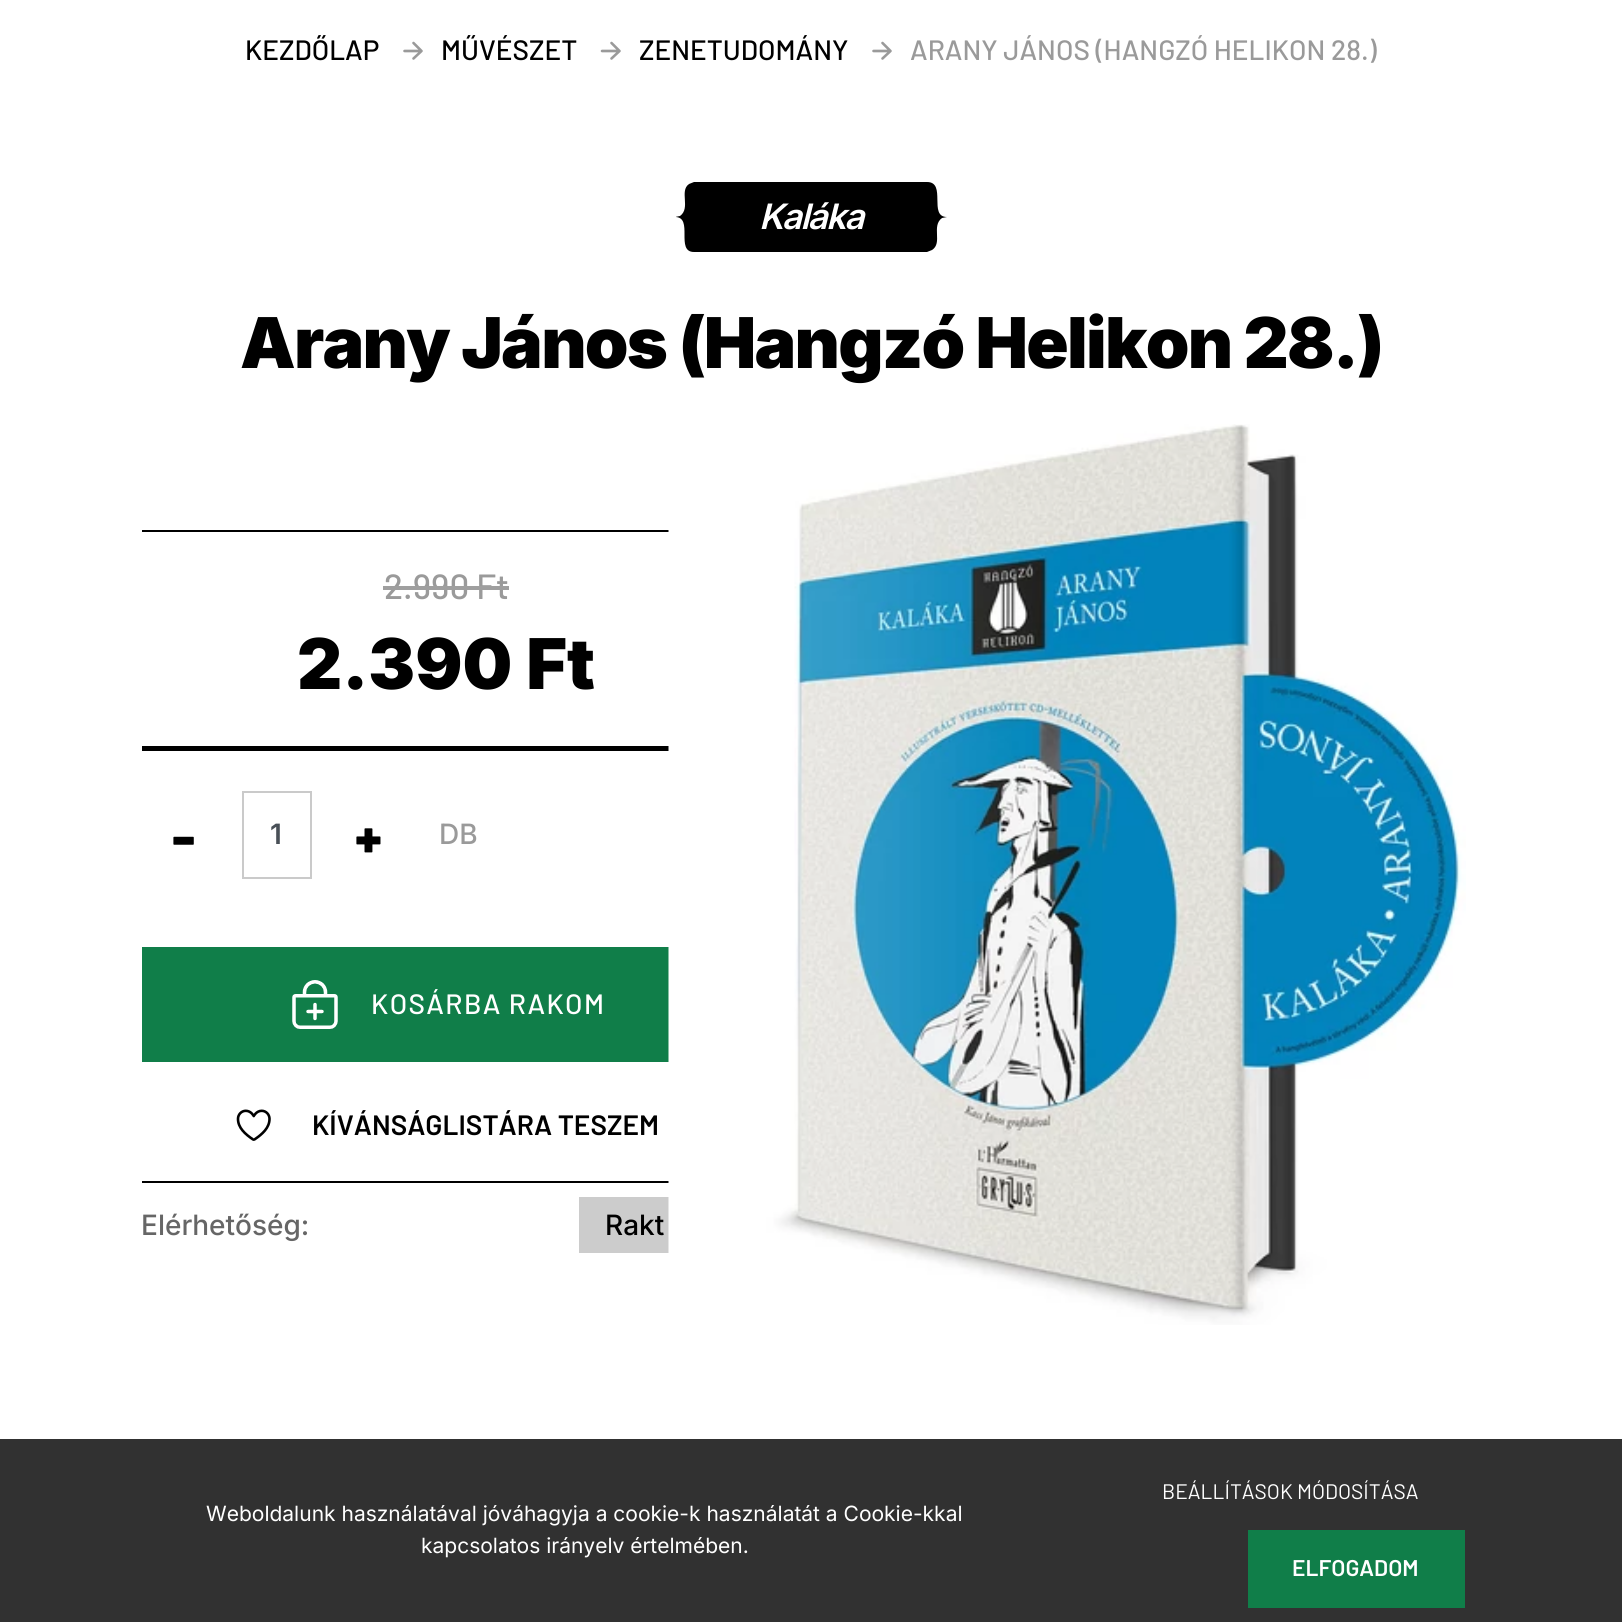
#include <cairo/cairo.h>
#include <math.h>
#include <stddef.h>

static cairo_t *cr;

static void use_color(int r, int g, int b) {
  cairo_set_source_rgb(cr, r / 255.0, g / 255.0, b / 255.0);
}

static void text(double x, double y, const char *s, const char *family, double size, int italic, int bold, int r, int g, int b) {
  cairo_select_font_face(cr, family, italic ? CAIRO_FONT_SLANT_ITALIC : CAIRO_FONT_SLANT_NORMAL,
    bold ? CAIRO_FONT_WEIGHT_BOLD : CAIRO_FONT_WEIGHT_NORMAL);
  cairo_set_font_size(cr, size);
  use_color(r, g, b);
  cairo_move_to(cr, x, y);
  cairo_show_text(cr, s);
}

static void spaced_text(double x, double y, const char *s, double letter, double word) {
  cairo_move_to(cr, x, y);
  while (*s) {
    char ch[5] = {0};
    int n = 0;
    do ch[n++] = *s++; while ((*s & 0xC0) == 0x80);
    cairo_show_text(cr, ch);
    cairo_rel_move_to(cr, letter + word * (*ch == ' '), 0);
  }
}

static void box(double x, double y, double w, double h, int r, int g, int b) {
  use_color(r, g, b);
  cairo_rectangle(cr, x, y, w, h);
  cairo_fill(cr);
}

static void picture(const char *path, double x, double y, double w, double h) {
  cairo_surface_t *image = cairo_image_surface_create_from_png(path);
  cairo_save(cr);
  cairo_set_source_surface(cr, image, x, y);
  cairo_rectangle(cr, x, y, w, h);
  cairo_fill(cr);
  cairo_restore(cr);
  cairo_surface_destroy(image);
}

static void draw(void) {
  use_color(255, 255, 255);
  cairo_paint(cr);
  cairo_new_path(cr);
  cairo_move_to(cr, 413.5, 43);
  cairo_line_to(cr, 421.5, 51);
  cairo_line_to(cr, 413.5, 58.5);
  cairo_move_to(cr, 420.5, 51);
  cairo_line_to(cr, 404.5, 51);
  use_color(154, 154, 154);
  cairo_set_line_width(cr, 2.6);
  cairo_set_line_cap(cr, CAIRO_LINE_CAP_ROUND);
  cairo_set_line_join(cr, CAIRO_LINE_JOIN_ROUND);
  cairo_stroke(cr);
  cairo_new_path(cr);
  cairo_move_to(cr, 611.5, 43);
  cairo_line_to(cr, 619.5, 51);
  cairo_line_to(cr, 611.5, 58.5);
  cairo_move_to(cr, 618, 51);
  cairo_line_to(cr, 602, 51);
  cairo_stroke(cr);
  cairo_new_path(cr);
  cairo_move_to(cr, 882.5, 43);
  cairo_line_to(cr, 890.5, 51);
  cairo_line_to(cr, 882.5, 58.5);
  cairo_move_to(cr, 889.5, 51);
  cairo_line_to(cr, 873.5, 51);
  cairo_stroke(cr);
  cairo_save(cr);
  cairo_rectangle(cr, 676, 182, 70, 70);
  cairo_clip(cr);
  use_color(0, 0, 0);
  cairo_new_path(cr);
  cairo_move_to(cr, 675, 217);
  cairo_curve_to(cr, 694, 217, 675, 252, 694, 252);
  cairo_line_to(cr, 1007, 252);
  cairo_curve_to(cr, 988, 252, 1007, 217, 988, 217);
  cairo_line_to(cr, 993, 216);
  cairo_curve_to(cr, 1004, 209, 992, 190, 1003, 183);
  cairo_line_to(cr, 1007, 182);
  cairo_line_to(cr, 694, 182);
  cairo_line_to(cr, 689, 184);
  cairo_curve_to(cr, 679, 191, 691, 208, 680, 216);
  cairo_close_path(cr);
  cairo_fill(cr);
  cairo_restore(cr);
  box(746, 182, 131, 70, 0, 0, 0);
  cairo_save(cr);
  cairo_rectangle(cr, 877, 182, 70, 70);
  cairo_clip(cr);
  cairo_new_path(cr);
  cairo_move_to(cr, 947, 217);
  cairo_curve_to(cr, 928, 217, 947, 182, 927, 182);
  cairo_line_to(cr, 615, 182);
  cairo_curve_to(cr, 634, 182, 615, 217, 634, 217);
  cairo_line_to(cr, 629, 218);
  cairo_curve_to(cr, 618, 225, 630, 244, 619, 251);
  cairo_line_to(cr, 615, 252);
  cairo_line_to(cr, 927, 252);
  cairo_line_to(cr, 932, 250);
  cairo_curve_to(cr, 943, 243, 931, 226, 942, 218);
  cairo_close_path(cr);
  cairo_fill(cr);
  cairo_restore(cr);
  box(142, 530, 527, 2, 0, 0, 0);
  box(142, 746, 527, 5, 0, 0, 0);
  cairo_rectangle(cr, 243, 792, 68, 86);
  use_color(202, 202, 202);
  cairo_set_line_width(cr, 2);
  cairo_set_line_cap(cr, CAIRO_LINE_CAP_BUTT);
  cairo_set_line_join(cr, CAIRO_LINE_JOIN_MITER);
  cairo_stroke(cr);
  box(142, 947, 527, 115, 16, 126, 73);
  picture("img_01.png", 292, 980, 46, 49);
  box(142, 1181, 527, 2, 0, 0, 0);
  picture("img_02.png", 236, 1109, 35, 32);
  box(579, 1197, 90, 56, 204, 204, 204);
  picture("img_03.png", 668, 424, 798, 901);
  box(0, 1439, 1622, 183, 49, 49, 49);
  box(1248, 1530, 217, 78, 16, 126, 73);
  text(245, 60, "KEZDŐLAP", "Barlow Medium", 28, 0, 0, 0, 0, 0);
  text(441, 60, "MŰVÉSZET", "Barlow Medium", 28, 0, 0, 0, 0, 0);
  text(639, 60, "ZENETUDOMÁNY", "Barlow Medium", 28, 0, 0, 0, 0, 0);
  text(910, 60, "ARANY JÁNOS (HANGZÓ HELIKON 28.)", "Barlow Medium", 28, 0, 0, 154, 154, 154);
  cairo_select_font_face(cr, "Inter SemiBold", CAIRO_FONT_SLANT_ITALIC, CAIRO_FONT_WEIGHT_NORMAL);
  cairo_set_font_size(cr, 35);
  use_color(255, 255, 255);
  spaced_text(759, 229, "Kaláka", -1.75, 0);
  cairo_select_font_face(cr, "Inter Black", CAIRO_FONT_SLANT_NORMAL, CAIRO_FONT_WEIGHT_NORMAL);
  cairo_set_font_size(cr, 70);
  use_color(0, 0, 0);
  spaced_text(240, 368, "Arany János (Hangzó Helikon 28.)", -1.75, 0);
  text(384, 599, "2.990 Ft", "Barlow Medium", 35, 0, 0, 154, 154, 154);
  box(383, 586, 126, 4, 159, 159, 159);
  text(297, 689, "2.390 Ft", "Inter Black", 70, 0, 0, 0, 0, 0);
  text(172, 857, "-", "Barlow ExtraBold", 56, 0, 0, 0, 0, 0);
  text(270, 844, "1", "Inter SemiBold", 28, 0, 0, 73, 80, 87);
  text(355, 857, "+", "Barlow ExtraBold", 56, 0, 0, 0, 0, 0);
  text(439, 844, "DB", "Inter Medium", 28, 0, 0, 154, 154, 154);
  cairo_select_font_face(cr, "Barlow Medium", CAIRO_FONT_SLANT_NORMAL, CAIRO_FONT_WEIGHT_NORMAL);
  use_color(255, 255, 255);
  spaced_text(371, 1014, "KOSÁRBA RAKOM", 1.4, 0);
  text(312, 1135, "KÍVÁNSÁGLISTÁRA TESZEM", "Barlow SemiBold", 28, 0, 0, 0, 0, 0);
  text(141, 1235, "Elérhetőség:", "Inter Medium", 28, 0, 0, 102, 102, 102);
  text(605, 1235, "Rakt", "Inter Medium", 28, 0, 0, 0, 0, 0);
  text(206, 1521, "Weboldalunk használatával jóváhagyja a cookie-k használatát a Cookie-kkal", "Inter", 21, 0, 0, 255, 255, 255);
  text(421, 1553, "kapcsolatos irányelv értelmében.", "Inter", 21, 0, 0, 255, 255, 255);
  text(1162, 1499, "BEÁLLÍTÁSOK MÓDOSÍTÁSA", "Barlow", 21, 0, 0, 255, 255, 255);
  text(1292, 1576, "ELFOGADOM", "Barlow SemiBold", 22.75, 0, 0, 255, 255, 255);
}

int main(void) {
  cairo_surface_t *surface = cairo_image_surface_create(CAIRO_FORMAT_RGB24, 1622, 1622);
  cr = cairo_create(surface);
  cairo_font_options_t *options = cairo_font_options_create();
  cairo_font_options_set_hint_metrics(options, CAIRO_HINT_METRICS_OFF);
  cairo_font_options_set_hint_style(options, CAIRO_HINT_STYLE_NONE);
  cairo_set_font_options(cr, options);
  cairo_set_miter_limit(cr, 4);
  draw();
  cairo_surface_write_to_png(surface, "out.png");
  cairo_font_options_destroy(options);
  cairo_destroy(cr);
  cairo_surface_destroy(surface);
  return 0;
}
